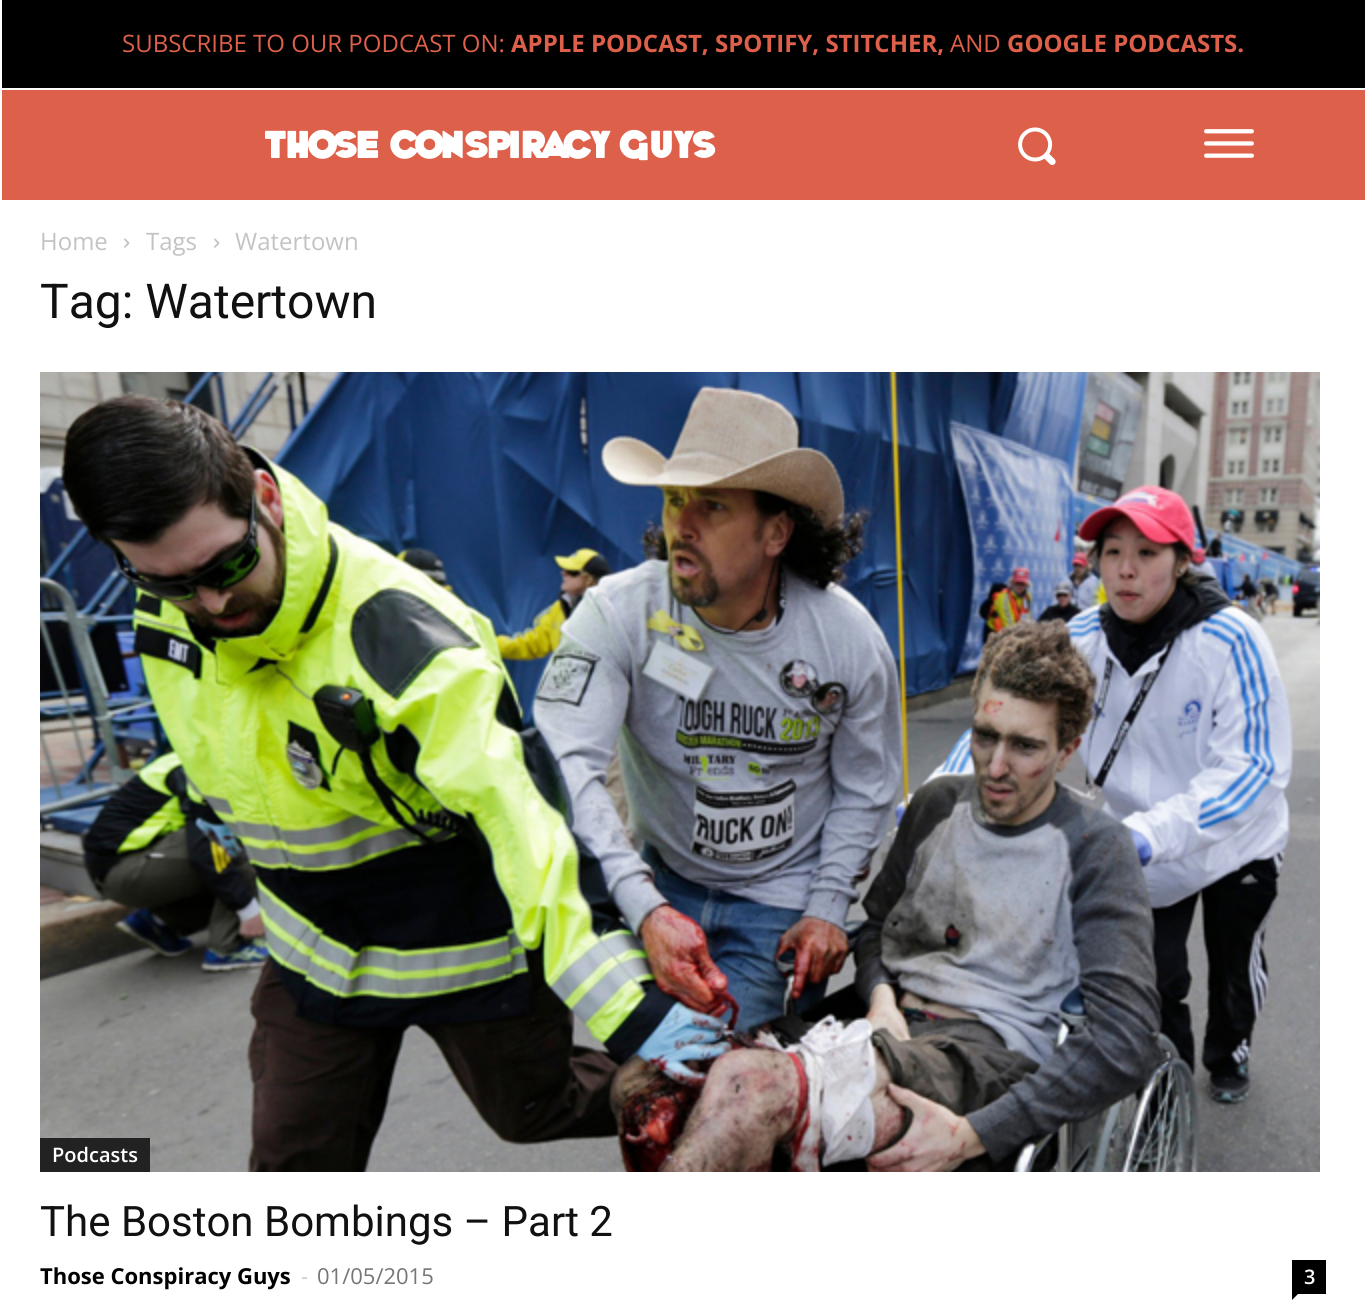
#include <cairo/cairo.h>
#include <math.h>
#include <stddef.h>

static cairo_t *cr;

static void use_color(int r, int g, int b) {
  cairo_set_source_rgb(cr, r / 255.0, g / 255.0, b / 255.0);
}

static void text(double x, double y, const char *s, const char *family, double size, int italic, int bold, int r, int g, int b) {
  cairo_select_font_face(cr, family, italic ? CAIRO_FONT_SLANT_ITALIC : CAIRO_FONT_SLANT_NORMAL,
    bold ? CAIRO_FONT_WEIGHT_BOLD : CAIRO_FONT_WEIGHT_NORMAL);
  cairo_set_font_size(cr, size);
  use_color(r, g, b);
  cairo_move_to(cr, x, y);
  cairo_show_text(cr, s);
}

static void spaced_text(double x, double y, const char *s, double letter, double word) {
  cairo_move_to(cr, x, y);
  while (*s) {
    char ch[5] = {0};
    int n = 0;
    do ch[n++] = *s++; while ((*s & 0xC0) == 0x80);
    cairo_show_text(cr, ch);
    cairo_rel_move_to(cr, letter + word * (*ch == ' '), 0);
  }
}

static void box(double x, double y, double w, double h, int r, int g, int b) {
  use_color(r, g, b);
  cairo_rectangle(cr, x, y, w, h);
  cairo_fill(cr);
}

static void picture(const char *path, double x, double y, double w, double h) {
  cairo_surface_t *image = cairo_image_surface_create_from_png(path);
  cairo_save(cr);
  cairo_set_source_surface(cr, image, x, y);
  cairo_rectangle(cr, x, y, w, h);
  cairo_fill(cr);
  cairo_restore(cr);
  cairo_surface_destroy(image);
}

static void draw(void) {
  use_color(255, 255, 255);
  cairo_paint(cr);
  box(2, 0, 1363, 88, 0, 0, 0);
  box(2, 90, 1363, 110, 221, 96, 74);
  picture("img_01.png", 1018, 127, 38, 38);
  picture("img_02.png", 1204, 129, 50, 29);
  picture("img_03.png", 124, 238, 6, 10);
  picture("img_03.png", 214, 238, 6, 10);
  picture("img_04.png", 40, 372, 1280, 800);
  box(40, 1138, 110, 34, 34, 34, 34);
  box(1292, 1260, 34, 34, 0, 0, 0);
  cairo_new_path(cr);
  cairo_move_to(cr, 1292, 1294);
  cairo_line_to(cr, 1298, 1294);
  cairo_line_to(cr, 1292, 1300);
  cairo_close_path(cr);
  cairo_fill(cr);
  text(122, 52, "SUBSCRIBE TO OUR PODCAST ON:", "Open Sans", 24, 0, 0, 221, 96, 74);
  text(511, 52, "APPLE PODCAST, SPOTIFY, STITCHER,", "Open Sans", 24, 0, 1, 221, 96, 74);
  text(950, 52, "AND", "Open Sans", 24, 0, 0, 221, 96, 74);
  text(1007, 52, "GOOGLE PODCASTS.", "Open Sans", 24, 0, 1, 221, 96, 74);
  cairo_select_font_face(cr, "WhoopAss", CAIRO_FONT_SLANT_NORMAL, CAIRO_FONT_WEIGHT_NORMAL);
  cairo_set_font_size(cr, 36);
  use_color(255, 255, 255);
  spaced_text(265, 158, "THOSE CONSPIRACY GUYS", 2, 0);
  text(40, 250, "Home", "Open Sans", 24, 0, 0, 195, 195, 195);
  text(146, 250, "Tags", "Open Sans", 24, 0, 0, 195, 195, 195);
  text(235, 250, "Watertown", "Open Sans", 24, 0, 0, 195, 195, 195);
  text(40, 318, "Tag: Watertown", "Roboto", 48, 0, 0, 17, 17, 17);
  text(52, 1162, "Podcasts", "Open Sans SemiBold", 20, 0, 0, 255, 255, 255);
  text(40, 1236, "The Boston Bombings – Part 2", "Roboto", 42, 0, 0, 17, 17, 17);
  text(40, 1284, "Those Conspiracy Guys", "Open Sans", 22, 0, 1, 0, 0, 0);
  text(301, 1284, "-", "Open Sans", 22, 0, 0, 204, 204, 204);
  text(317, 1284, "01/05/2015", "Open Sans", 22, 0, 0, 118, 118, 118);
  text(1304, 1284, "3", "Open Sans SemiBold", 20, 0, 0, 255, 255, 255);
}

int main(void) {
  cairo_surface_t *surface = cairo_image_surface_create(CAIRO_FORMAT_RGB24, 1365, 1300);
  cr = cairo_create(surface);
  cairo_font_options_t *options = cairo_font_options_create();
  cairo_font_options_set_hint_metrics(options, CAIRO_HINT_METRICS_OFF);
  cairo_font_options_set_hint_style(options, CAIRO_HINT_STYLE_NONE);
  cairo_set_font_options(cr, options);
  cairo_set_miter_limit(cr, 4);
  draw();
  cairo_surface_write_to_png(surface, "out.png");
  cairo_font_options_destroy(options);
  cairo_destroy(cr);
  cairo_surface_destroy(surface);
  return 0;
}
